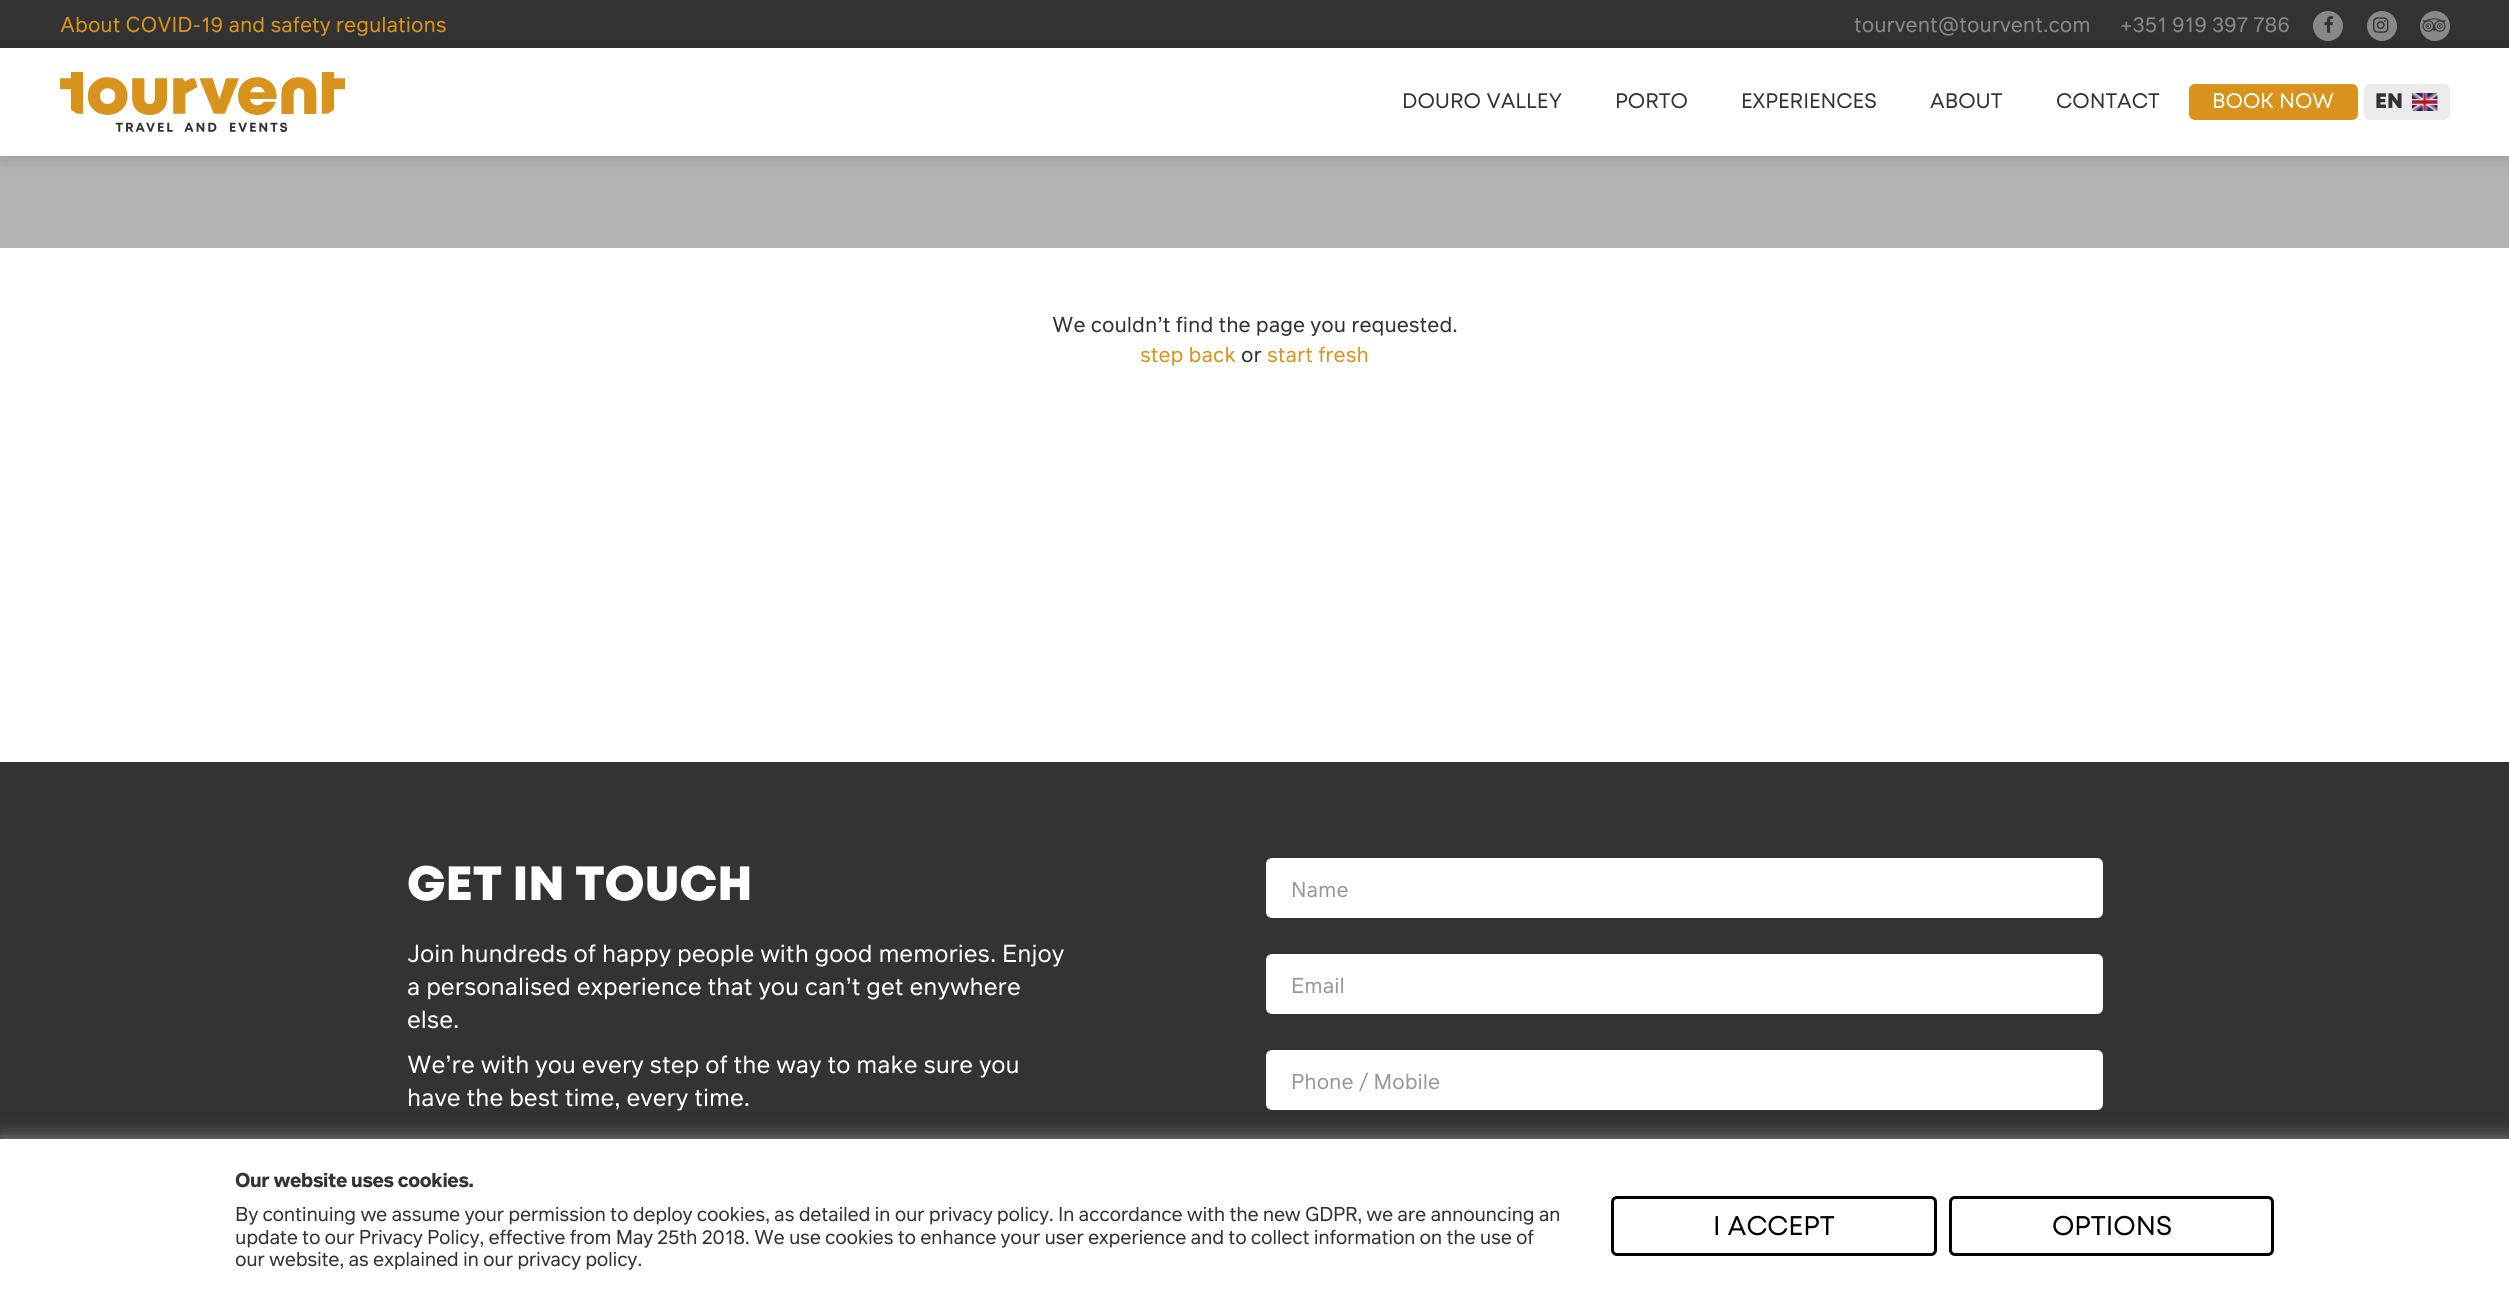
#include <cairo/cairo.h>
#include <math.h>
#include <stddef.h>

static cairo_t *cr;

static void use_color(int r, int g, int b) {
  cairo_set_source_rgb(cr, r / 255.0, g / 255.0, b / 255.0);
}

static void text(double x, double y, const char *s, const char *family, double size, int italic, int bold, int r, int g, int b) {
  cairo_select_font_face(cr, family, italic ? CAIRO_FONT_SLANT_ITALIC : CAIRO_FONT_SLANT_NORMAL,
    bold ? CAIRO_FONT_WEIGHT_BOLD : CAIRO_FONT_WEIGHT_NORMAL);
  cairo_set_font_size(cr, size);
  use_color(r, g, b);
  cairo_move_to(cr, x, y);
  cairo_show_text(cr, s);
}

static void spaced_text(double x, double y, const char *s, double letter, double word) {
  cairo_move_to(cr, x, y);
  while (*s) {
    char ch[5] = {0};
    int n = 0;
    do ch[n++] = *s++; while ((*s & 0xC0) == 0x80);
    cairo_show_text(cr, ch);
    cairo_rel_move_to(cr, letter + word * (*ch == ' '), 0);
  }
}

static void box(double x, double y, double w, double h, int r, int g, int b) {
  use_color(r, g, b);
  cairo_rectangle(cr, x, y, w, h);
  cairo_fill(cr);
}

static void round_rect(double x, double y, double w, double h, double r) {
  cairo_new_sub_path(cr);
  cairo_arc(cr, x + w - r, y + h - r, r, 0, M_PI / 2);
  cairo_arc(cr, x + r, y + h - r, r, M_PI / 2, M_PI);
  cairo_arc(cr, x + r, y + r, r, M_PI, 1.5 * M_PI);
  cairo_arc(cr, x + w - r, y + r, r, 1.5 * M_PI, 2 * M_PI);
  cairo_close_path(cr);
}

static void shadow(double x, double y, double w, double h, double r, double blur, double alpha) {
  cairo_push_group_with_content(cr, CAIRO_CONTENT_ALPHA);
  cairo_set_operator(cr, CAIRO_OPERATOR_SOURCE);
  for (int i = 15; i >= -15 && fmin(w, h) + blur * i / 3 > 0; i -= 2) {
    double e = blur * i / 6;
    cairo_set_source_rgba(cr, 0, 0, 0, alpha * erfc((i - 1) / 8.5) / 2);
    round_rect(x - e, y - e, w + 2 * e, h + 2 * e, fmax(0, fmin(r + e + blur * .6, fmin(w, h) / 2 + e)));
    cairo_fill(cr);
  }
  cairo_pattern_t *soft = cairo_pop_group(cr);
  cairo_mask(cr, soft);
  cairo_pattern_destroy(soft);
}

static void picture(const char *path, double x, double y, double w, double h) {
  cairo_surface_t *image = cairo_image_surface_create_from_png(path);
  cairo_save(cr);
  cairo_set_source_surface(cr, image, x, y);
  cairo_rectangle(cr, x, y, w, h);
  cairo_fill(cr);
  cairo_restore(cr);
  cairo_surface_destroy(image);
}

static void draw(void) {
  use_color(255, 255, 255);
  cairo_paint(cr);
  box(0, 0, 2509, 48, 51, 51, 51);
  box(0, 156, 2509, 92, 179, 179, 179);
  use_color(0, 0, 0);
  shadow(0, 48, 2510, 108, 0, 12, 0.16);
  use_color(136, 136, 136);
  cairo_arc(cr, 2328, 26, 15, 0, 2 * M_PI);
  cairo_fill(cr);
  picture("img_01.png", 2324, 16, 10, 17);
  cairo_arc(cr, 2382, 26, 15, 0, 2 * M_PI);
  cairo_fill(cr);
  picture("img_02.png", 2373, 17, 16, 16);
  cairo_arc(cr, 2435, 26, 15, 0, 2 * M_PI);
  cairo_fill(cr);
  picture("img_03.png", 2422, 18, 24, 14);
  box(0, 48, 2509, 108, 255, 255, 255);
  picture("img_04.png", 60, 72, 285, 60);
  use_color(216, 147, 28);
  round_rect(2189, 84, 169, 36, 6);
  cairo_fill(cr);
  use_color(235, 235, 235);
  round_rect(2364, 84, 86, 36, 6);
  cairo_fill(cr);
  picture("img_05.png", 2412, 93, 26, 18);
  box(0, 762, 2509, 377, 51, 51, 51);
  use_color(255, 255, 255);
  round_rect(1266, 858, 837, 60, 6);
  cairo_fill(cr);
  round_rect(1266, 954, 837, 60, 6);
  cairo_fill(cr);
  round_rect(1266, 1050, 837, 60, 6);
  cairo_fill(cr);
  use_color(136, 136, 136);
  shadow(0, 1139, 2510, 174, 0, 9, 1);
  box(0, 1139, 2509, 173, 255, 255, 255);
  round_rect(1612.5, 1197.5, 323, 57, 4.5);
  use_color(0, 0, 0);
  cairo_set_line_width(cr, 3);
  cairo_stroke(cr);
  round_rect(1950.5, 1197.5, 322, 57, 4.5);
  cairo_stroke(cr);
  text(60, 32, "About COVID-19 and safety regulations", "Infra", 21, 0, 0, 216, 147, 28);
  text(1854, 32, "tourvent@tourvent.com", "Infra", 21, 0, 0, 136, 136, 136);
  text(2120, 32, "+351 919 397 786", "Infra", 21, 0, 0, 136, 136, 136);
  text(1402, 108, "DOURO VALLEY", "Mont", 21, 0, 0, 51, 51, 51);
  text(1615, 108, "PORTO", "Mont", 21, 0, 0, 51, 51, 51);
  text(1741, 108, "EXPERIENCES", "Mont", 21, 0, 0, 51, 51, 51);
  text(1930, 108, "ABOUT", "Mont", 21, 0, 0, 51, 51, 51);
  text(2056, 108, "CONTACT", "Mont", 21, 0, 0, 51, 51, 51);
  text(2212, 108, "BOOK NOW", "Mont", 21, 0, 0, 255, 255, 255);
  text(2375, 108, "EN", "Mont Black", 21, 0, 0, 51, 51, 51);
  text(1052, 332, "We couldn’t find the page you requested.", "Infra", 21, 0, 0, 51, 51, 51);
  text(1140, 362, "step back", "Infra", 21, 0, 0, 216, 147, 28);
  text(1241, 362, "or", "Infra", 21, 0, 0, 51, 51, 51);
  text(1267, 362, "start fresh", "Infra", 21, 0, 0, 216, 147, 28);
  text(407, 900, "GET IN TOUCH", "Mont Black", 48, 0, 0, 255, 255, 255);
  text(407, 962, "Join hundreds of happy people with good memories. Enjoy", "Infra", 24, 0, 0, 255, 255, 255);
  text(407, 995, "a personalised experience that you can’t get enywhere", "Infra", 24, 0, 0, 255, 255, 255);
  text(407, 1028, "else.", "Infra", 24, 0, 0, 255, 255, 255);
  text(407, 1073, "We’re with you every step of the way to make sure you", "Infra", 24, 0, 0, 255, 255, 255);
  text(407, 1106, "have the best time, every time.", "Infra", 24, 0, 0, 255, 255, 255);
  text(1291, 897, "Name", "Infra", 21, 0, 0, 153, 153, 153);
  text(1291, 993, "Email", "Infra", 21, 0, 0, 153, 153, 153);
  text(1291, 1089, "Phone / Mobile", "Infra", 21, 0, 0, 153, 153, 153);
  cairo_select_font_face(cr, "Infra", CAIRO_FONT_SLANT_NORMAL, CAIRO_FONT_WEIGHT_BOLD);
  cairo_set_font_size(cr, 19.5);
  use_color(51, 51, 51);
  spaced_text(235, 1187, "Our website uses cookies.", -0.33, 0);
  cairo_select_font_face(cr, "Infra", CAIRO_FONT_SLANT_NORMAL, CAIRO_FONT_WEIGHT_NORMAL);
  spaced_text(235, 1221, "By continuing we assume your permission to deploy cookies, as detailed in our privacy policy. In accordance with the new GDPR, we are announcing an", -0.33, 0);
  spaced_text(235, 1244, "update to our Privacy Policy, effective from May 25th 2018. We use cookies to enhance your user experience and to collect information on the use of", -0.33, 0);
  spaced_text(235, 1266, "our website, as explained in our privacy policy.", -0.33, 0);
  text(1713, 1235, "I ACCEPT", "Mont", 27, 0, 0, 0, 0, 0);
  text(2052, 1235, "OPTIONS", "Mont", 27, 0, 0, 0, 0, 0);
}

int main(void) {
  cairo_surface_t *surface = cairo_image_surface_create(CAIRO_FORMAT_RGB24, 2509, 1312);
  cr = cairo_create(surface);
  cairo_font_options_t *options = cairo_font_options_create();
  cairo_font_options_set_hint_metrics(options, CAIRO_HINT_METRICS_OFF);
  cairo_font_options_set_hint_style(options, CAIRO_HINT_STYLE_NONE);
  cairo_set_font_options(cr, options);
  cairo_set_miter_limit(cr, 4);
  draw();
  cairo_surface_write_to_png(surface, "out.png");
  cairo_font_options_destroy(options);
  cairo_destroy(cr);
  cairo_surface_destroy(surface);
  return 0;
}
